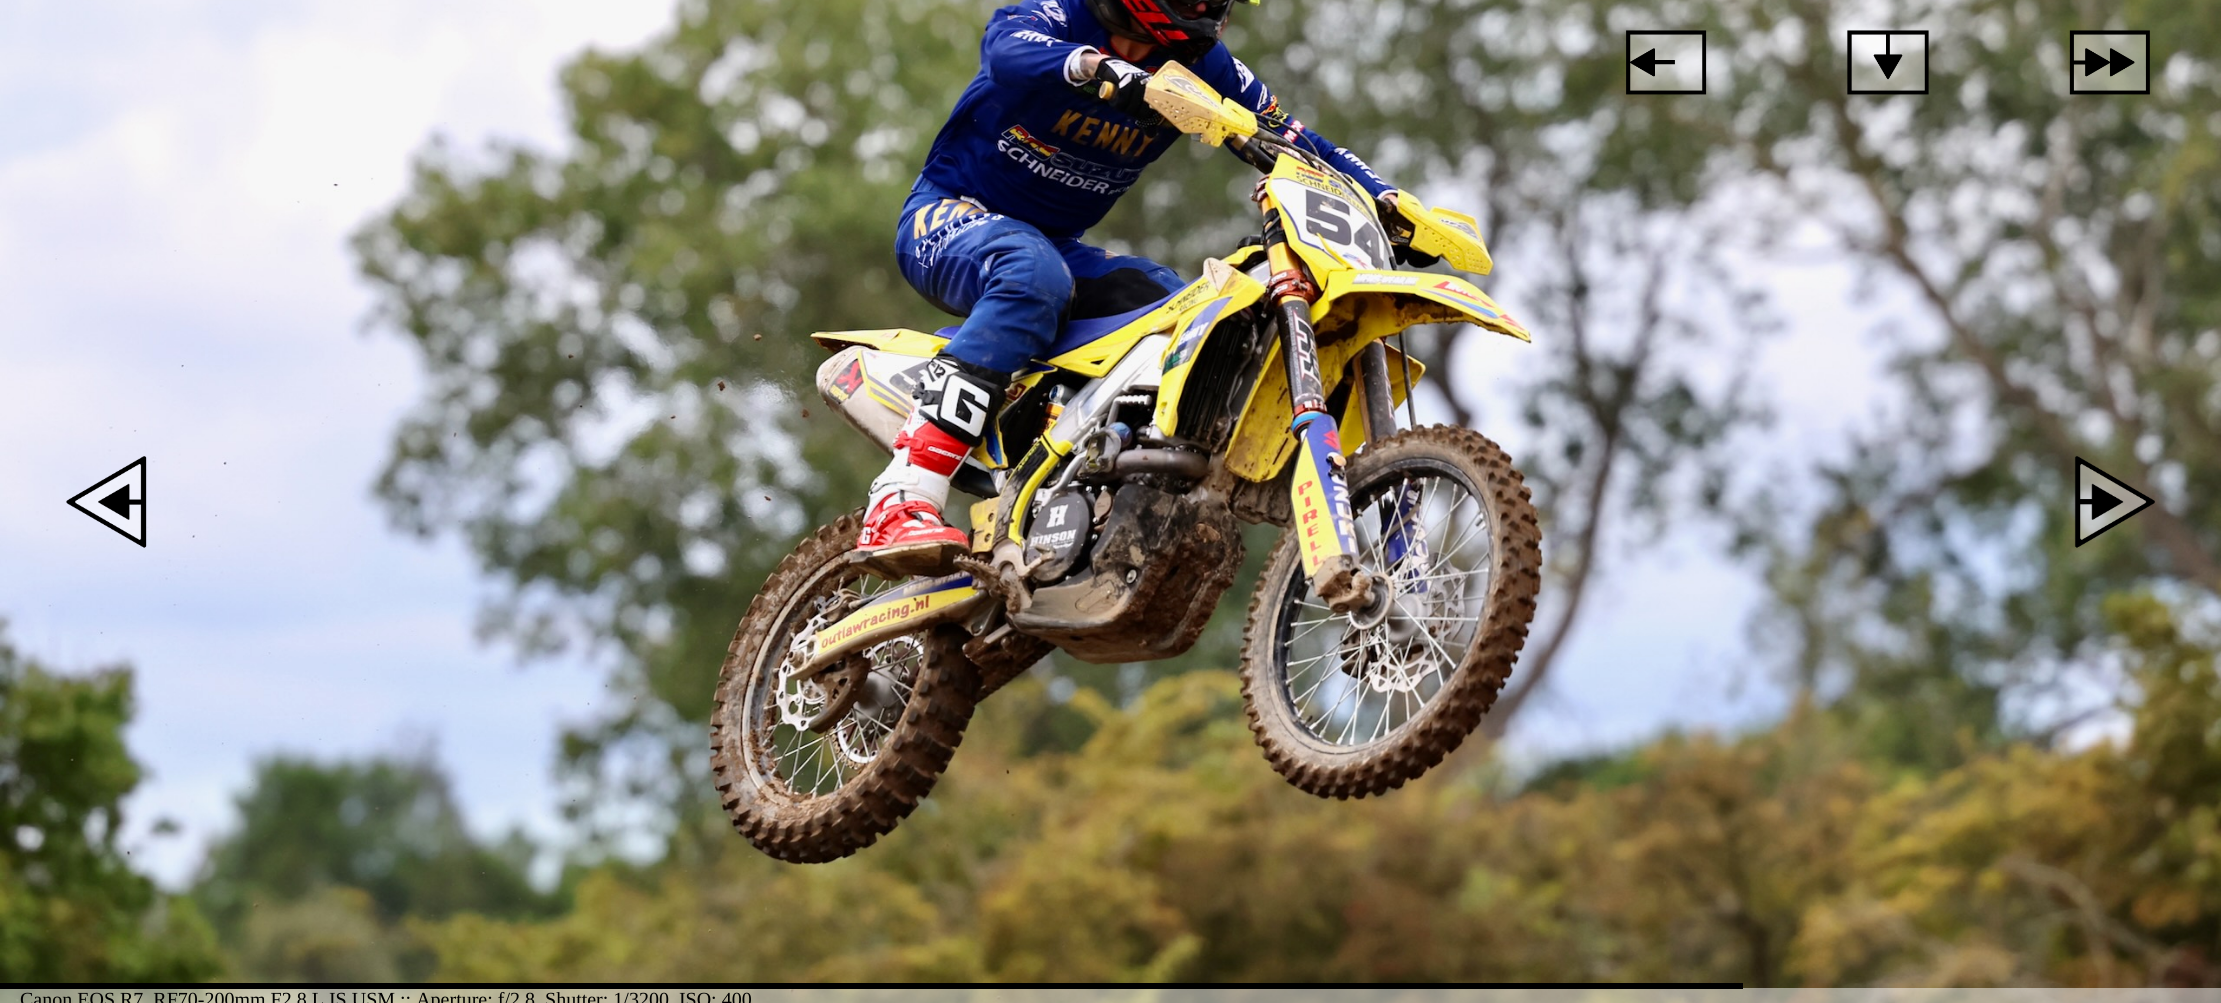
#include <cairo/cairo.h>
#include <math.h>
#include <stddef.h>

static cairo_t *cr;

static void use_color(int r, int g, int b) {
  cairo_set_source_rgb(cr, r / 255.0, g / 255.0, b / 255.0);
}

static void text(double x, double y, const char *s, const char *family, double size, int italic, int bold, int r, int g, int b) {
  cairo_select_font_face(cr, family, italic ? CAIRO_FONT_SLANT_ITALIC : CAIRO_FONT_SLANT_NORMAL,
    bold ? CAIRO_FONT_WEIGHT_BOLD : CAIRO_FONT_WEIGHT_NORMAL);
  cairo_set_font_size(cr, size);
  use_color(r, g, b);
  cairo_move_to(cr, x, y);
  cairo_show_text(cr, s);
}

static void box(double x, double y, double w, double h, int r, int g, int b) {
  use_color(r, g, b);
  cairo_rectangle(cr, x, y, w, h);
  cairo_fill(cr);
}

static void picture(const char *path, double x, double y, double w, double h) {
  cairo_surface_t *image = cairo_image_surface_create_from_png(path);
  cairo_save(cr);
  cairo_set_source_surface(cr, image, x, y);
  cairo_rectangle(cr, x, y, w, h);
  cairo_fill(cr);
  cairo_restore(cr);
  cairo_surface_destroy(image);
}

static void draw(void) {
  use_color(255, 255, 255);
  cairo_paint(cr);
  picture("img_01.png", 0, 0, 2221, 1003);
  picture("img_02.png", 1626, 30, 81, 65);
  picture("img_03.png", 1847, 30, 82, 65);
  picture("img_04.png", 2069, 30, 81, 65);
  picture("img_05.png", 66, 456, 81, 92);
  picture("img_06.png", 2074, 456, 81, 92);
  cairo_set_source_rgba(cr, 1, 1, 1, 0.5);
  cairo_rectangle(cr, 0, 988, 2221, 15);
  cairo_fill(cr);
  box(0, 983, 1743, 6, 0, 0, 0);
  text(20, 1006, "Canon EOS R7, RF70-200mm F2.8 L IS USM :: Aperture: f/2.8, Shutter: 1/3200, ISO: 400", "Liberation Serif", 20, 0, 0, 0, 0, 0);
}

int main(void) {
  cairo_surface_t *surface = cairo_image_surface_create(CAIRO_FORMAT_RGB24, 2221, 1003);
  cr = cairo_create(surface);
  cairo_font_options_t *options = cairo_font_options_create();
  cairo_font_options_set_hint_metrics(options, CAIRO_HINT_METRICS_OFF);
  cairo_font_options_set_hint_style(options, CAIRO_HINT_STYLE_NONE);
  cairo_set_font_options(cr, options);
  cairo_set_miter_limit(cr, 4);
  draw();
  cairo_surface_write_to_png(surface, "out.png");
  cairo_font_options_destroy(options);
  cairo_destroy(cr);
  cairo_surface_destroy(surface);
  return 0;
}
